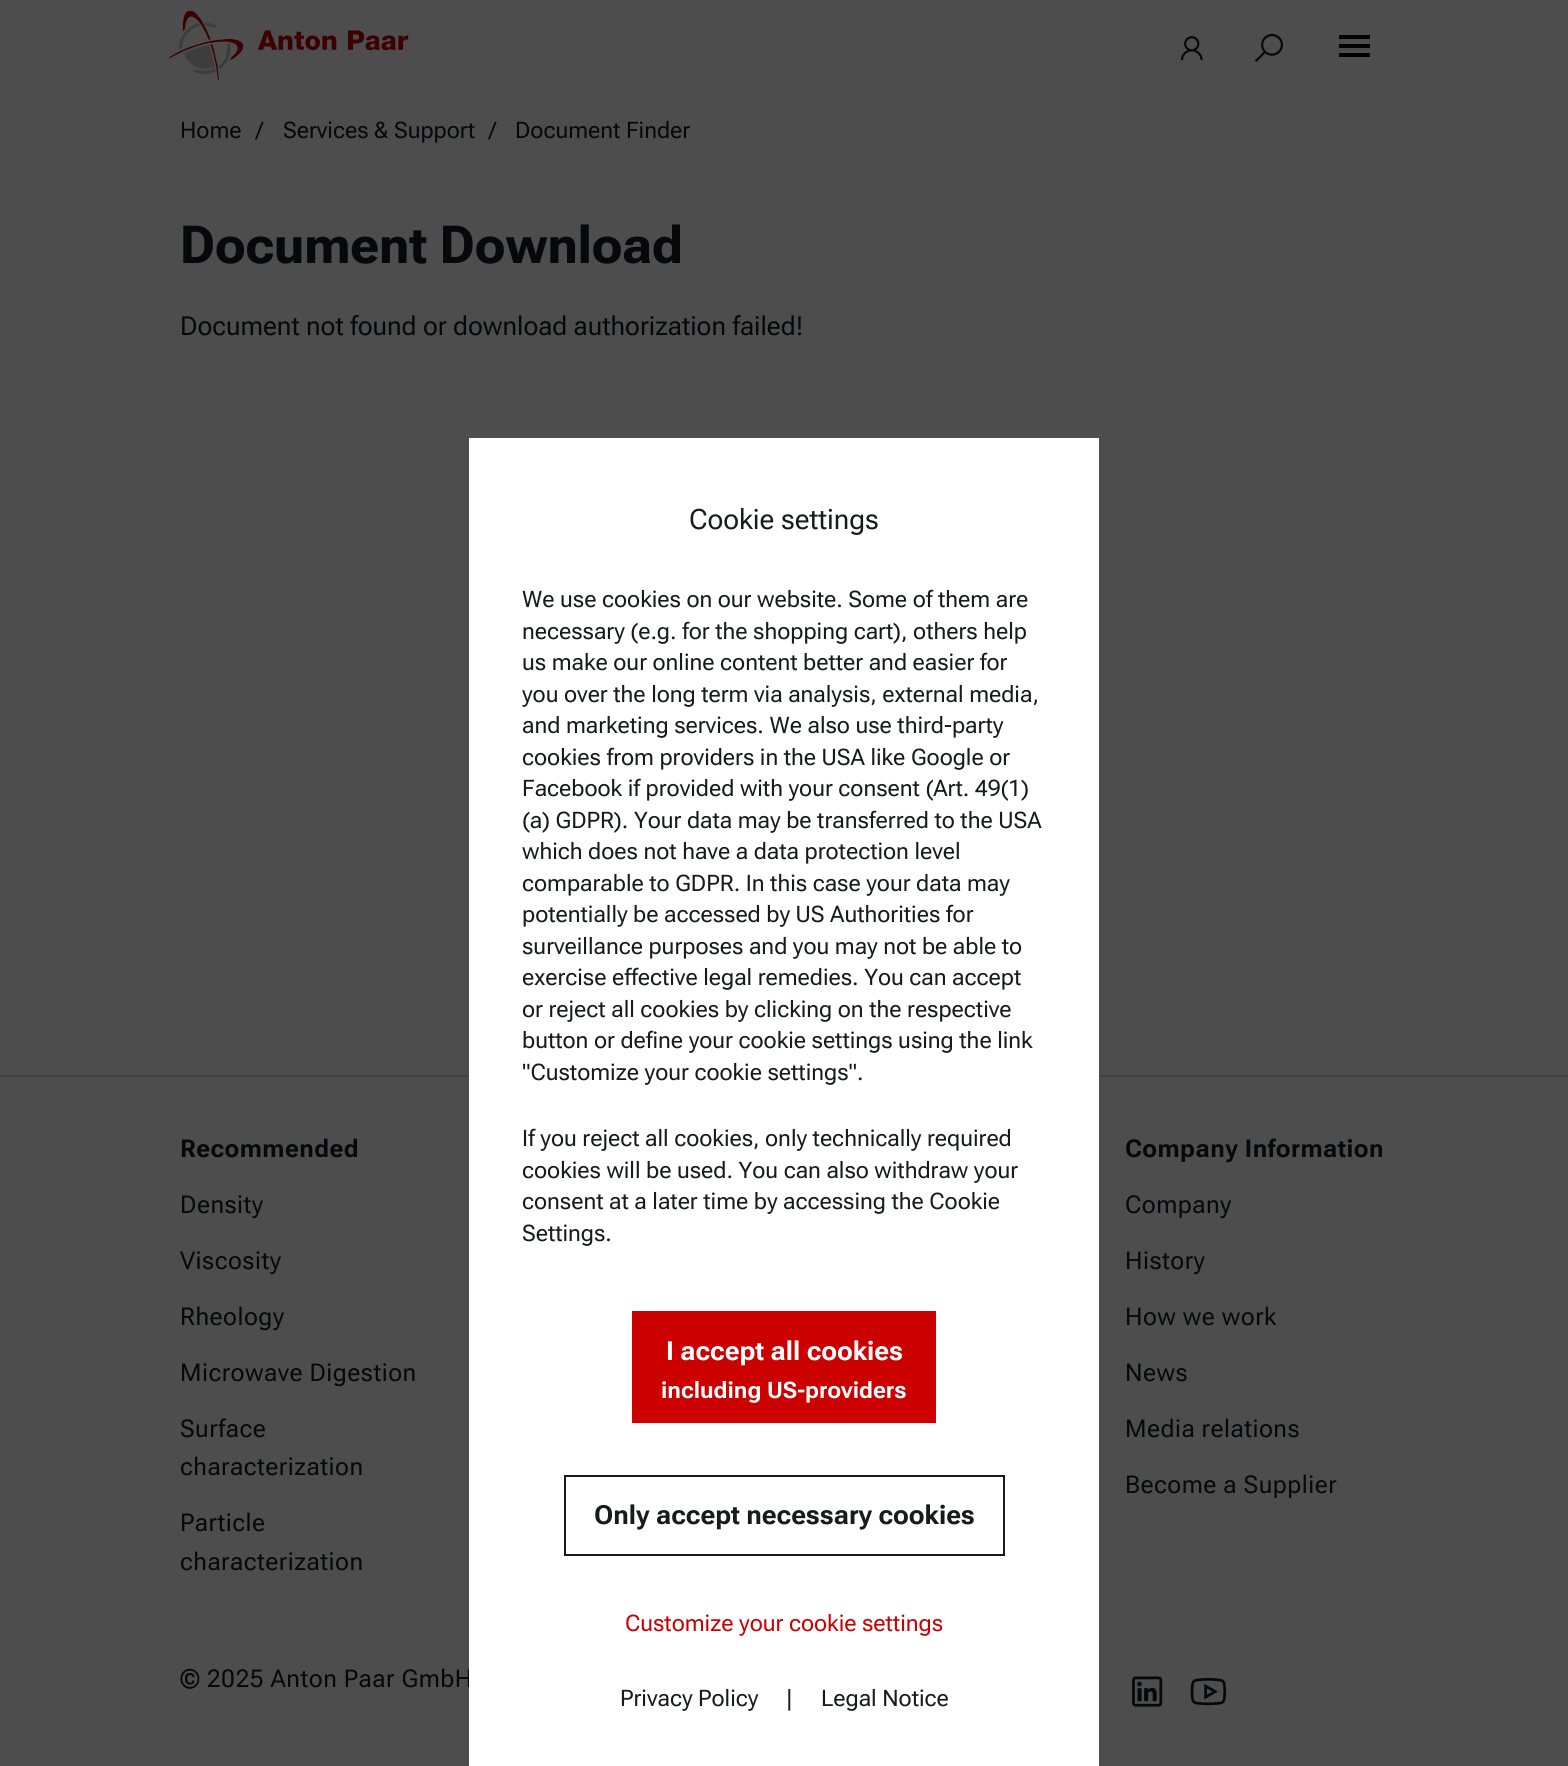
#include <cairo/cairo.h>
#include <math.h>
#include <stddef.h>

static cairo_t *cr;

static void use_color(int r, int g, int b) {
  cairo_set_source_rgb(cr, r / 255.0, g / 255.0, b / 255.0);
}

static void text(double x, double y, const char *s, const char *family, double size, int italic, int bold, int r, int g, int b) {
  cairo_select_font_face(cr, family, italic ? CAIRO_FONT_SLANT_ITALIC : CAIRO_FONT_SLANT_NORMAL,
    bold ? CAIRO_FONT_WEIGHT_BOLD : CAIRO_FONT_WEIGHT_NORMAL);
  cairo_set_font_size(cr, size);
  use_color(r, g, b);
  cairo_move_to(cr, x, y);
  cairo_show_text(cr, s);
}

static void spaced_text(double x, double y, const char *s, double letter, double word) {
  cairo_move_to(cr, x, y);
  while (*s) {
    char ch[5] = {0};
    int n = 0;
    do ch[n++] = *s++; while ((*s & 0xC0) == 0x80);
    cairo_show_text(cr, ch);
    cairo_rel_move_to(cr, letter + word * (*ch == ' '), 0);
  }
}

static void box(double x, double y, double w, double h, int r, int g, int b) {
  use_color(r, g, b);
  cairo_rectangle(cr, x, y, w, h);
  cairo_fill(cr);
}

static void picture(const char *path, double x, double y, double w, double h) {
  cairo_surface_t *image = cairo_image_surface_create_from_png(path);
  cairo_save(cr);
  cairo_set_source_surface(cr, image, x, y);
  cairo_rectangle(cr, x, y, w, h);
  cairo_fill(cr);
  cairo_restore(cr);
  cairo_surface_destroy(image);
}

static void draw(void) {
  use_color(77, 77, 77);
  cairo_paint(cr);
  picture("img_01.png", 168, 11, 241, 69);
  picture("img_02.png", 1180, 36, 23, 25);
  picture("img_03.png", 1254, 33, 29, 29);
  box(1339, 35, 31, 4, 0, 0, 0);
  box(1339, 44, 31, 4, 0, 0, 0);
  box(1339, 53, 31, 4, 0, 0, 0);
  box(0, 1075, 1568, 2, 67, 67, 69);
  picture("img_04.png", 1132, 1676, 31, 31);
  picture("img_05.png", 1190, 1677, 37, 29);
  text(180, 138, "Home", "Roboto Flex", 22.75, 0, 0, 7, 8, 9);
  text(256, 138, "/", "Roboto Flex", 22.75, 0, 0, 7, 8, 9);
  text(283, 138, "Services & Support", "Roboto Flex", 22.75, 0, 0, 7, 8, 9);
  text(489, 138, "/", "Roboto Flex", 22.75, 0, 0, 7, 8, 9);
  text(515, 138, "Document Finder", "Roboto Flex", 22.75, 0, 0, 7, 8, 9);
  text(180, 263, "Document Download", "Roboto Flex", 52.5, 0, 1, 7, 8, 9);
  text(180, 335, "Document not found or download authorization failed!", "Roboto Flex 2", 26.25, 0, 0, 7, 8, 9);
  cairo_select_font_face(cr, "Roboto Flex 2", CAIRO_FONT_SLANT_NORMAL, CAIRO_FONT_WEIGHT_BOLD);
  cairo_set_font_size(cr, 24.5);
  spaced_text(180, 1157, "Recommended", 0.5, 0);
  cairo_select_font_face(cr, "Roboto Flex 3", CAIRO_FONT_SLANT_NORMAL, CAIRO_FONT_WEIGHT_NORMAL);
  spaced_text(180, 1213, "Density", 0.5, 0);
  spaced_text(180, 1269, "Viscosity", 0.5, 0);
  spaced_text(180, 1325, "Rheology", 0.5, 0);
  spaced_text(180, 1381, "Microwave Digestion", 0.5, 0);
  spaced_text(180, 1437, "Surface", 0.5, 0);
  spaced_text(180, 1475, "characterization", 0.5, 0);
  spaced_text(180, 1531, "Particle", 0.5, 0);
  spaced_text(180, 1570, "characterization", 0.5, 0);
  cairo_select_font_face(cr, "Roboto Flex 2", CAIRO_FONT_SLANT_NORMAL, CAIRO_FONT_WEIGHT_BOLD);
  spaced_text(1125, 1157, "Company Information", 0.5, 0);
  cairo_select_font_face(cr, "Roboto Flex 3", CAIRO_FONT_SLANT_NORMAL, CAIRO_FONT_WEIGHT_NORMAL);
  spaced_text(1125, 1213, "Company", 0.5, 0);
  spaced_text(1125, 1269, "History", 0.5, 0);
  spaced_text(1125, 1325, "How we work", 0.5, 0);
  spaced_text(1125, 1381, "News", 0.5, 0);
  spaced_text(1125, 1437, "Media relations", 0.5, 0);
  spaced_text(1125, 1493, "Become a Supplier", 0.5, 0);
  spaced_text(180, 1687, "© 2025 Anton Paar GmbH", 0.5, 0);
  box(469, 438, 630, 1328, 255, 255, 255);
  text(522, 1241, "Settings.", "Roboto Flex", 22.75, 0, 0, 24, 26, 30);
  text(522, 1209, "consent at a later time by accessing the Cookie", "Roboto Flex", 22.75, 0, 0, 24, 26, 30);
  text(522, 1178, "cookies will be used. You can also withdraw your", "Roboto Flex", 22.75, 0, 0, 24, 26, 30);
  text(522, 1146, "If you reject all cookies, only technically required", "Roboto Flex", 22.75, 0, 0, 24, 26, 30);
  text(522, 1080, "\"Customize your cookie settings\".", "Roboto Flex", 22.75, 0, 0, 24, 26, 30);
  text(522, 1048, "button or define your cookie settings using the link", "Roboto Flex", 22.75, 0, 0, 24, 26, 30);
  text(522, 1017, "or reject all cookies by clicking on the respective", "Roboto Flex", 22.75, 0, 0, 24, 26, 30);
  text(522, 985, "exercise effective legal remedies. You can accept", "Roboto Flex", 22.75, 0, 0, 24, 26, 30);
  text(522, 954, "surveillance purposes and you may not be able to", "Roboto Flex", 22.75, 0, 0, 24, 26, 30);
  text(522, 922, "potentially be accessed by US Authorities for", "Roboto Flex", 22.75, 0, 0, 24, 26, 30);
  text(522, 891, "comparable to GDPR. In this case your data may", "Roboto Flex", 22.75, 0, 0, 24, 26, 30);
  text(522, 859, "which does not have a data protection level", "Roboto Flex", 22.75, 0, 0, 24, 26, 30);
  text(522, 828, "(a) GDPR). Your data may be transferred to the USA", "Roboto Flex", 22.75, 0, 0, 24, 26, 30);
  text(522, 796, "Facebook if provided with your consent (Art. 49(1)", "Roboto Flex", 22.75, 0, 0, 24, 26, 30);
  text(522, 765, "cookies from providers in the USA like Google or", "Roboto Flex", 22.75, 0, 0, 24, 26, 30);
  text(522, 733, "and marketing services. We also use third-party", "Roboto Flex", 22.75, 0, 0, 24, 26, 30);
  text(522, 702, "you over the long term via analysis, external media,", "Roboto Flex", 22.75, 0, 0, 24, 26, 30);
  text(522, 670, "us make our online content better and easier for", "Roboto Flex", 22.75, 0, 0, 24, 26, 30);
  text(522, 639, "necessary (e.g. for the shopping cart), others help", "Roboto Flex", 22.75, 0, 0, 24, 26, 30);
  text(522, 607, "We use cookies on our website. Some of them are", "Roboto Flex", 22.75, 0, 0, 24, 26, 30);
  text(821, 1706, "Legal Notice", "Roboto Flex", 22.75, 0, 0, 24, 26, 30);
  text(786, 1706, "|", "Roboto Flex", 22.75, 0, 0, 24, 26, 30);
  text(620, 1706, "Privacy Policy", "Roboto Flex", 22.75, 0, 0, 24, 26, 30);
  text(625, 1631, "Customize your cookie settings", "Roboto Flex", 22.75, 0, 0, 204, 0, 0);
  cairo_rectangle(cr, 565, 1476, 439, 79);
  use_color(24, 26, 30);
  cairo_stroke(cr);
  text(594, 1524, "Only accept necessary cookies", "Roboto Flex 2", 26.25, 0, 1, 24, 26, 30);
  box(632, 1311, 304, 112, 204, 0, 0);
  text(661, 1398, "including US-providers", "Roboto Flex 3", 22.75, 0, 1, 255, 255, 255);
  text(666, 1360, "I accept all cookies", "Roboto Flex 2", 26.25, 0, 1, 255, 255, 255);
  text(689, 529, "Cookie settings", "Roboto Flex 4", 28, 0, 0, 24, 26, 30);
}

int main(void) {
  cairo_surface_t *surface = cairo_image_surface_create(CAIRO_FORMAT_RGB24, 1568, 1766);
  cr = cairo_create(surface);
  cairo_font_options_t *options = cairo_font_options_create();
  cairo_font_options_set_hint_metrics(options, CAIRO_HINT_METRICS_OFF);
  cairo_font_options_set_hint_style(options, CAIRO_HINT_STYLE_NONE);
  cairo_set_font_options(cr, options);
  cairo_set_miter_limit(cr, 4);
  draw();
  cairo_surface_write_to_png(surface, "out.png");
  cairo_font_options_destroy(options);
  cairo_destroy(cr);
  cairo_surface_destroy(surface);
  return 0;
}
